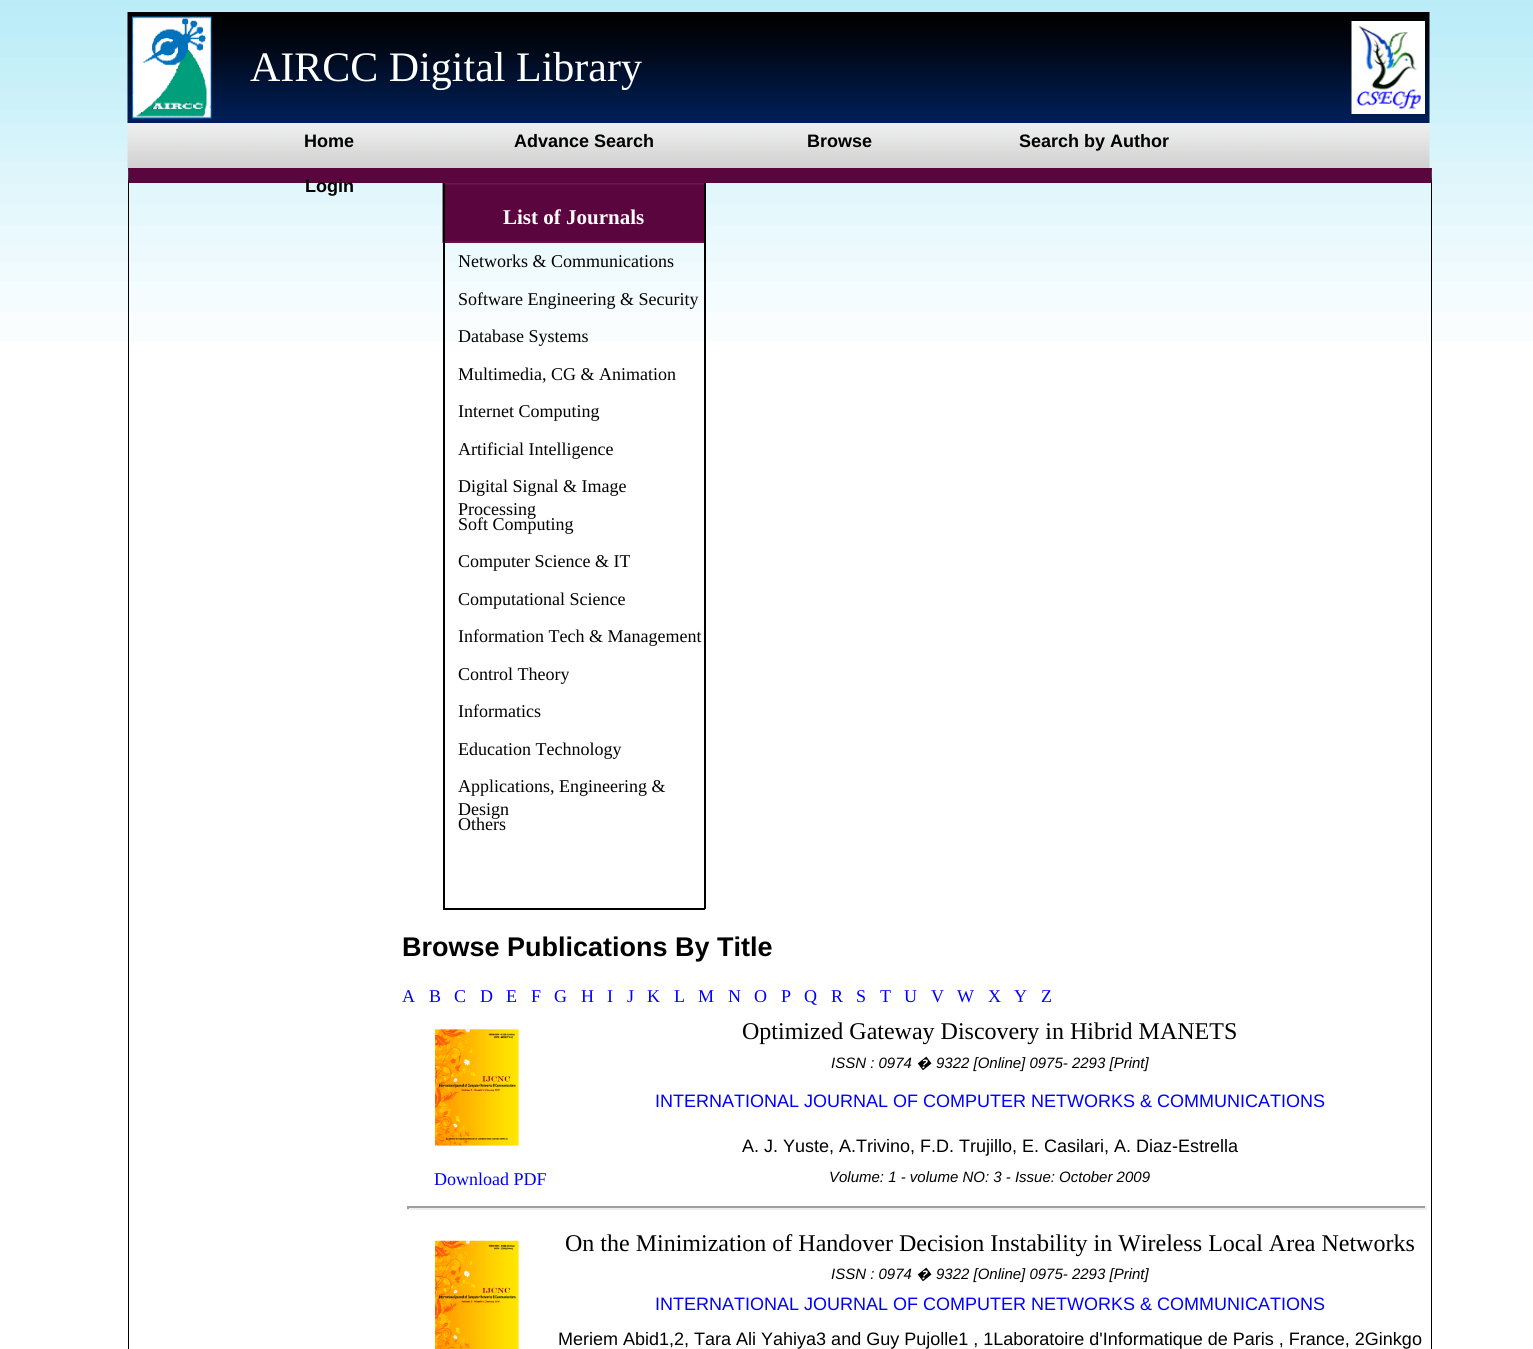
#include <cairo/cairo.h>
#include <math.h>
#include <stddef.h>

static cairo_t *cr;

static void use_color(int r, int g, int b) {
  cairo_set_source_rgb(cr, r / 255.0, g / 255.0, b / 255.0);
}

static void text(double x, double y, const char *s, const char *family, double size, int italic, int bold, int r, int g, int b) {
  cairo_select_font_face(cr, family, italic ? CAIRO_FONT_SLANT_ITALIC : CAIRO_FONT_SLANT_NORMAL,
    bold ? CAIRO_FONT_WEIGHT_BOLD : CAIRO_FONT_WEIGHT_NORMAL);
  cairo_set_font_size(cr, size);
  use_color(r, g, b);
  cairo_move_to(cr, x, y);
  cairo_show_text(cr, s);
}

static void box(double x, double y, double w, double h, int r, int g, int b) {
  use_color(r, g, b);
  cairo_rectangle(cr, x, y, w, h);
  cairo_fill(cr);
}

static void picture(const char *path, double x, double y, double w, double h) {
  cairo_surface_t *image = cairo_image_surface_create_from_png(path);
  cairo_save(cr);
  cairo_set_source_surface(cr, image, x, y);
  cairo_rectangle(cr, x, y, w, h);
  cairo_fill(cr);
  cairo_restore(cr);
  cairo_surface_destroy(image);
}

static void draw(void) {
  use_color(255, 255, 255);
  cairo_paint(cr);
  picture("img_01.png", 0, 0, 1533, 341);
  picture("img_02.png", 127, 12, 1303, 111);
  picture("img_03.png", 132, 16, 80, 103);
  picture("img_04.png", 1351, 21, 74, 93);
  picture("img_05.png", 127, 123, 1303, 45);
  use_color(91, 5, 63);
  cairo_new_path(cr);
  cairo_move_to(cr, 128, 168);
  cairo_line_to(cr, 1432, 168);
  cairo_line_to(cr, 1431, 183);
  cairo_line_to(cr, 129, 183);
  cairo_close_path(cr);
  cairo_fill(cr);
  use_color(0, 0, 0);
  cairo_new_path(cr);
  cairo_move_to(cr, 1432, 168);
  cairo_line_to(cr, 1432, 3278);
  cairo_line_to(cr, 1431, 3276);
  cairo_line_to(cr, 1431, 183);
  cairo_close_path(cr);
  cairo_fill(cr);
  cairo_new_path(cr);
  cairo_move_to(cr, 128, 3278);
  cairo_line_to(cr, 128, 168);
  cairo_line_to(cr, 129, 183);
  cairo_line_to(cr, 129, 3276);
  cairo_close_path(cr);
  cairo_fill(cr);
  picture("img_06.png", 442, 183, 262, 60);
  box(704, 183, 2, 726, 0, 0, 0);
  box(443, 908, 262, 2, 0, 0, 0);
  box(443, 183, 2, 726, 0, 0, 0);
  picture("img_07.png", 435, 1029, 84, 117);
  box(407, 1206, 1020, 2, 159, 159, 159);
  box(1425, 1206, 2, 3, 238, 238, 238);
  box(407, 1208, 1020, 2, 238, 238, 238);
  box(407, 1206, 2, 3, 159, 159, 159);
  picture("img_08.png", 435, 1240, 84, 109);
  text(250, 81, "AIRCC Digital Library", "Liberation Serif", 42, 0, 0, 255, 255, 255);
  text(304, 147, "Home", "Liberation Sans", 18, 0, 1, 0, 0, 0);
  text(514, 147, "Advance Search", "Liberation Sans", 18, 0, 1, 0, 0, 0);
  text(807, 147, "Browse", "Liberation Sans", 18, 0, 1, 0, 0, 0);
  text(1019, 147, "Search by Author", "Liberation Sans", 18, 0, 1, 0, 0, 0);
  text(305, 192, "Login", "Liberation Sans", 18, 0, 1, 0, 0, 0);
  text(503, 224, "List of Journals", "Liberation Serif", 21, 0, 1, 255, 255, 255);
  text(458, 267, "Networks & Communications", "Liberation Serif", 18, 0, 0, 0, 0, 0);
  text(458, 305, "Software Engineering & Security", "Liberation Serif", 18, 0, 0, 0, 0, 0);
  text(458, 342, "Database Systems", "Liberation Serif", 18, 0, 0, 0, 0, 0);
  text(458, 380, "Multimedia, CG & Animation", "Liberation Serif", 18, 0, 0, 0, 0, 0);
  text(458, 417, "Internet Computing", "Liberation Serif", 18, 0, 0, 0, 0, 0);
  text(458, 455, "Artificial Intelligence", "Liberation Serif", 18, 0, 0, 0, 0, 0);
  text(458, 492, "Digital Signal & Image", "Liberation Serif", 18, 0, 0, 0, 0, 0);
  text(458, 515, "Processing", "Liberation Serif", 18, 0, 0, 0, 0, 0);
  text(458, 530, "Soft Computing", "Liberation Serif", 18, 0, 0, 0, 0, 0);
  text(458, 567, "Computer Science & IT", "Liberation Serif", 18, 0, 0, 0, 0, 0);
  text(458, 605, "Computational Science", "Liberation Serif", 18, 0, 0, 0, 0, 0);
  text(458, 642, "Information Tech & Management", "Liberation Serif", 18, 0, 0, 0, 0, 0);
  text(458, 680, "Control Theory", "Liberation Serif", 18, 0, 0, 0, 0, 0);
  text(458, 717, "Informatics", "Liberation Serif", 18, 0, 0, 0, 0, 0);
  text(458, 755, "Education Technology", "Liberation Serif", 18, 0, 0, 0, 0, 0);
  text(458, 792, "Applications, Engineering &", "Liberation Serif", 18, 0, 0, 0, 0, 0);
  text(458, 815, "Design", "Liberation Serif", 18, 0, 0, 0, 0, 0);
  text(458, 830, "Others", "Liberation Serif", 18, 0, 0, 0, 0, 0);
  text(402, 956, "Browse Publications By Title", "Liberation Sans", 27, 0, 1, 0, 0, 0);
  text(402, 1002, "A", "Liberation Serif", 18, 0, 0, 0, 0, 255);
  text(429, 1002, "B", "Liberation Serif", 18, 0, 0, 0, 0, 255);
  text(454, 1002, "C", "Liberation Serif", 18, 0, 0, 0, 0, 255);
  text(480, 1002, "D", "Liberation Serif", 18, 0, 0, 0, 0, 255);
  text(506, 1002, "E", "Liberation Serif", 18, 0, 0, 0, 0, 255);
  text(531, 1002, "F", "Liberation Serif", 18, 0, 0, 0, 0, 255);
  text(554, 1002, "G", "Liberation Serif", 18, 0, 0, 0, 0, 255);
  text(581, 1002, "H", "Liberation Serif", 18, 0, 0, 0, 0, 255);
  text(607, 1002, "I", "Liberation Serif", 18, 0, 0, 0, 0, 255);
  text(627, 1002, "J", "Liberation Serif", 18, 0, 0, 0, 0, 255);
  text(647, 1002, "K", "Liberation Serif", 18, 0, 0, 0, 0, 255);
  text(674, 1002, "L", "Liberation Serif", 18, 0, 0, 0, 0, 255);
  text(698, 1002, "M", "Liberation Serif", 18, 0, 0, 0, 0, 255);
  text(728, 1002, "N", "Liberation Serif", 18, 0, 0, 0, 0, 255);
  text(754, 1002, "O", "Liberation Serif", 18, 0, 0, 0, 0, 255);
  text(781, 1002, "P", "Liberation Serif", 18, 0, 0, 0, 0, 255);
  text(804, 1002, "Q", "Liberation Serif", 18, 0, 0, 0, 0, 255);
  text(831, 1002, "R", "Liberation Serif", 18, 0, 0, 0, 0, 255);
  text(856, 1002, "S", "Liberation Serif", 18, 0, 0, 0, 0, 255);
  text(880, 1002, "T", "Liberation Serif", 18, 0, 0, 0, 0, 255);
  text(904, 1002, "U", "Liberation Serif", 18, 0, 0, 0, 0, 255);
  text(931, 1002, "V", "Liberation Serif", 18, 0, 0, 0, 0, 255);
  text(957, 1002, "W", "Liberation Serif", 18, 0, 0, 0, 0, 255);
  text(988, 1002, "X", "Liberation Serif", 18, 0, 0, 0, 0, 255);
  text(1014, 1002, "Y", "Liberation Serif", 18, 0, 0, 0, 0, 255);
  text(1041, 1002, "Z", "Liberation Serif", 18, 0, 0, 0, 0, 255);
  text(742, 1039, "Optimized Gateway Discovery in Hibrid MANETS", "Liberation Serif", 24, 0, 0, 0, 0, 0);
  text(831, 1068, "ISSN : 0974", "Liberation Sans", 15, 1, 0, 0, 0, 0);
  text(916, 1068, "�", "Noto Sans", 15, 1, 0, 0, 0, 0);
  text(936, 1068, "9322 [Online] 0975- 2293 [Print]", "Liberation Sans", 15, 1, 0, 0, 0, 0);
  text(655, 1107, "INTERNATIONAL JOURNAL OF COMPUTER NETWORKS & COMMUNICATIONS", "Liberation Sans", 18, 0, 0, 0, 0, 255);
  text(742, 1152, "A. J. Yuste, A.Trivino, F.D. Trujillo, E. Casilari, A. Diaz-Estrella", "Liberation Sans", 18, 0, 0, 0, 0, 0);
  text(434, 1185, "Download PDF", "Liberation Serif", 18, 0, 0, 0, 0, 255);
  text(829, 1182, "Volume: 1 - volume NO: 3 - Issue: October 2009", "Liberation Sans", 15, 1, 0, 0, 0, 0);
  text(565, 1251, "On the Minimization of Handover Decision Instability in Wireless Local Area Networks", "Liberation Serif", 24, 0, 0, 0, 0, 0);
  text(831, 1279, "ISSN : 0974", "Liberation Sans", 15, 1, 0, 0, 0, 0);
  text(916, 1279, "�", "Noto Sans", 15, 1, 0, 0, 0, 0);
  text(936, 1279, "9322 [Online] 0975- 2293 [Print]", "Liberation Sans", 15, 1, 0, 0, 0, 0);
  text(655, 1310, "INTERNATIONAL JOURNAL OF COMPUTER NETWORKS & COMMUNICATIONS", "Liberation Sans", 18, 0, 0, 0, 0, 255);
  text(558, 1345, "Meriem Abid1,2, Tara Ali Yahiya3 and Guy Pujolle1 , 1Laboratoire d'Informatique de Paris , France, 2Ginkgo", "Liberation Sans", 18, 0, 0, 0, 0, 0);
}

int main(void) {
  cairo_surface_t *surface = cairo_image_surface_create(CAIRO_FORMAT_RGB24, 1533, 1349);
  cr = cairo_create(surface);
  cairo_font_options_t *options = cairo_font_options_create();
  cairo_font_options_set_hint_metrics(options, CAIRO_HINT_METRICS_OFF);
  cairo_font_options_set_hint_style(options, CAIRO_HINT_STYLE_NONE);
  cairo_set_font_options(cr, options);
  cairo_set_miter_limit(cr, 4);
  draw();
  cairo_surface_write_to_png(surface, "out.png");
  cairo_font_options_destroy(options);
  cairo_destroy(cr);
  cairo_surface_destroy(surface);
  return 0;
}
